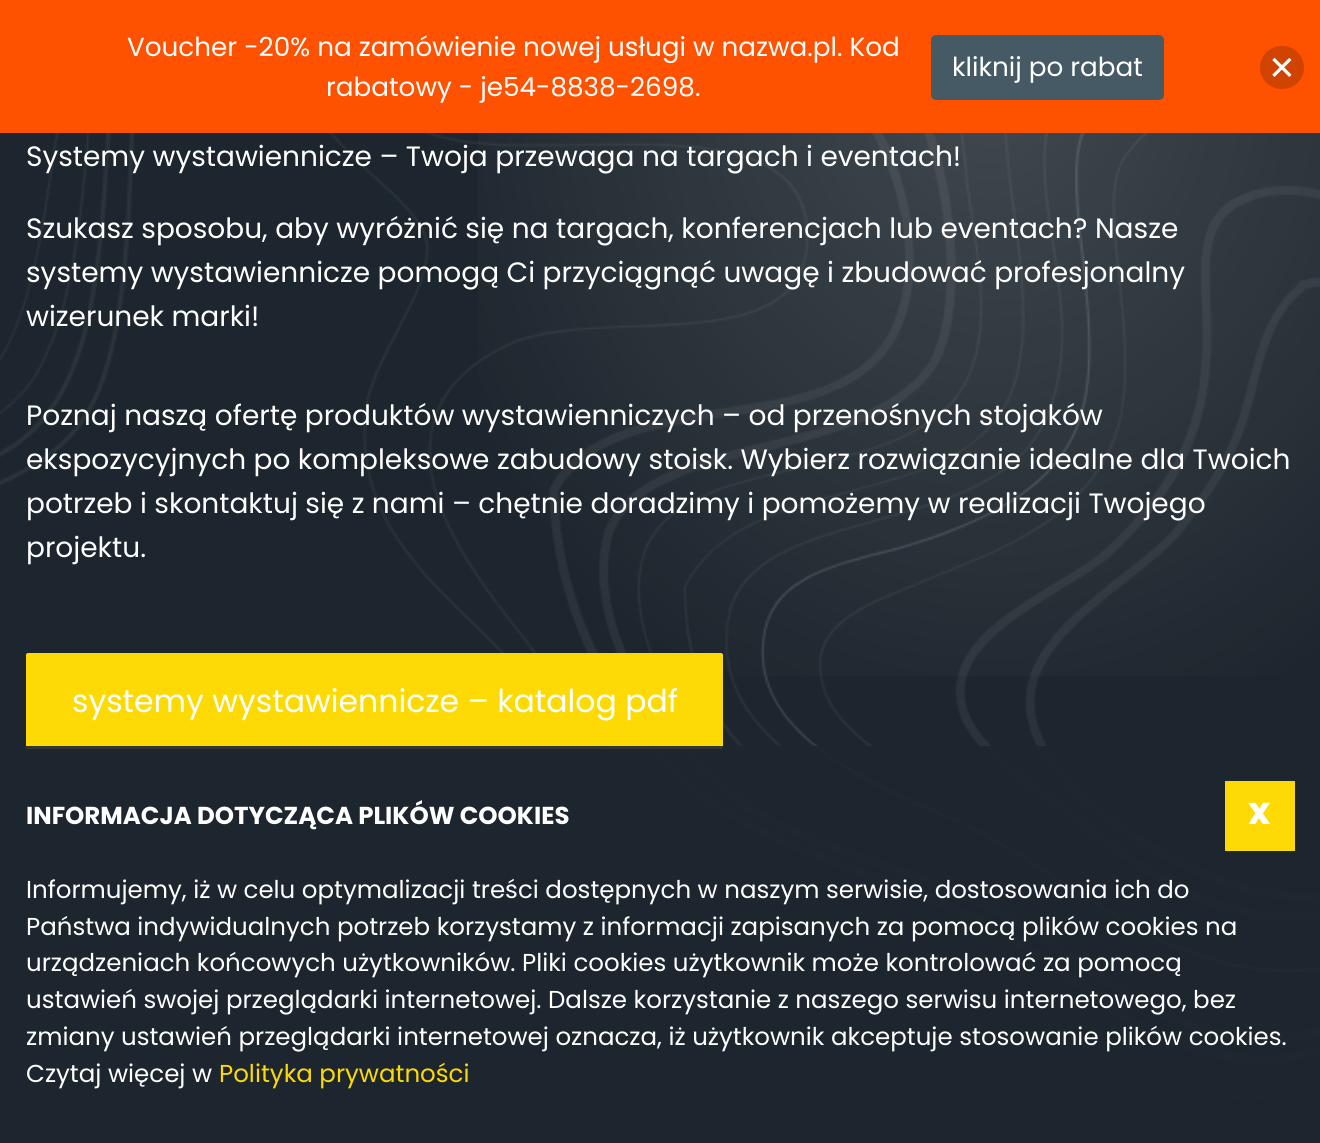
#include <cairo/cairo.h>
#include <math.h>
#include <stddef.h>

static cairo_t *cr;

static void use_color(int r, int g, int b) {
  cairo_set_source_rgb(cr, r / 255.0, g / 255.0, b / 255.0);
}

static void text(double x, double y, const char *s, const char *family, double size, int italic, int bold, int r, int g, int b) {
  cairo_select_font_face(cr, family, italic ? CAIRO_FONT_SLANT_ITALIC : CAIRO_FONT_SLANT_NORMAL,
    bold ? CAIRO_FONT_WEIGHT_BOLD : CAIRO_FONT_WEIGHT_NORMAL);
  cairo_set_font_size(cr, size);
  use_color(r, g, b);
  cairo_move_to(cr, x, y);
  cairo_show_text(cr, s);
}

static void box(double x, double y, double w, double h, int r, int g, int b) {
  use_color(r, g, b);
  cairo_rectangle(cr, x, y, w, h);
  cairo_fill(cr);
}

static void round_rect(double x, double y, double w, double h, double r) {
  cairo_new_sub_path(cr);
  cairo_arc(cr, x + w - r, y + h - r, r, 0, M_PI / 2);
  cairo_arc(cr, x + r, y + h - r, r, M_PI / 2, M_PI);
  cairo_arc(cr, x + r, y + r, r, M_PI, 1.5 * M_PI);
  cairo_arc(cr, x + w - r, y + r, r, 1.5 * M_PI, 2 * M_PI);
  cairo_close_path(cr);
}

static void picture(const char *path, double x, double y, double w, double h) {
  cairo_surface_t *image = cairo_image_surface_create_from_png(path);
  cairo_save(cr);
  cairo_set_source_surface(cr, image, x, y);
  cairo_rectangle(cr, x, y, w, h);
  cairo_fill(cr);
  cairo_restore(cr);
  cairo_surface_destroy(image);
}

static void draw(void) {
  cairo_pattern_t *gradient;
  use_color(29, 38, 46);
  cairo_paint(cr);
  box(0, 0, 1320, 133, 255, 82, 0);
  use_color(69, 90, 100);
  round_rect(931, 35, 233, 65, 5);
  cairo_fill(cr);
  use_color(209, 67, 0);
  round_rect(1260, 46, 44, 43, 21.5);
  cairo_fill(cr);
  picture("img_01.png", 1272, 57, 20, 20);
  picture("img_02.png", 0, 133, 1320, 989);
  gradient = cairo_pattern_create_radial(0, 0, 0, 0, 0, 1);
  cairo_pattern_set_matrix(gradient, &(cairo_matrix_t){1.0 / 595, 0, 0, 1.0 / 700, -1.0 * 991 / 595, -1.0 * 72 / 700});
  cairo_pattern_add_color_stop_rgba(gradient, 0, 1, 1, 1, 0.16);
  cairo_pattern_add_color_stop_rgba(gradient, 1, 1, 1, 1, 0);
  cairo_set_source(cr, gradient);
  cairo_pattern_destroy(gradient);
  cairo_rectangle(cr, 478, 133, 842, 543);
  cairo_fill(cr);
  use_color(253, 218, 4);
  round_rect(26, 653, 697, 96, 2);
  cairo_fill(cr);
  cairo_set_source_rgba(cr, 0.114, 0.149, 0.18, 0.9);
  cairo_rectangle(cr, 26, 746, 1294, 376);
  cairo_fill(cr);
  box(1225, 781, 70, 70, 253, 218, 4);
  text(127, 56, "Voucher -20% na zamówienie nowej usługi w nazwa.pl. Kod", "Poppins", 26.25, 0, 0, 255, 255, 255);
  text(326, 96, "rabatowy - je54-8838-2698.", "Poppins", 26.25, 0, 0, 255, 255, 255);
  text(952, 76, "kliknij po rabat", "Poppins", 26.25, 0, 0, 255, 255, 255);
  text(26, 166, "Systemy wystawiennicze – Twoja przewaga na targach i eventach!", "Poppins", 28, 0, 0, 255, 255, 255);
  text(26, 238, "Szukasz sposobu, aby wyróżnić się na targach, konferencjach lub eventach? Nasze", "Poppins", 28, 0, 0, 255, 255, 255);
  text(26, 282, "systemy wystawiennicze pomogą Ci przyciągnąć uwagę i zbudować profesjonalny", "Poppins", 28, 0, 0, 255, 255, 255);
  text(26, 326, "wizerunek marki!", "Poppins", 28, 0, 0, 255, 255, 255);
  text(26, 425, "Poznaj naszą ofertę produktów wystawienniczych – od przenośnych stojaków", "Poppins", 28, 0, 0, 255, 255, 255);
  text(26, 469, "ekspozycyjnych po kompleksowe zabudowy stoisk. Wybierz rozwiązanie idealne dla Twoich", "Poppins", 28, 0, 0, 255, 255, 255);
  text(26, 513, "potrzeb i skontaktuj się z nami – chętnie doradzimy i pomożemy w realizacji Twojego", "Poppins", 28, 0, 0, 255, 255, 255);
  text(26, 557, "projektu.", "Poppins", 28, 0, 0, 255, 255, 255);
  text(72, 712, "systemy wystawiennicze – katalog pdf", "Poppins", 31.5, 0, 0, 255, 255, 255);
  text(26, 824, "INFORMACJA DOTYCZĄCA PLIKÓW COOKIES", "Poppins", 24.5, 0, 1, 255, 255, 255);
  text(1248, 824, "x", "Poppins", 38, 0, 1, 255, 255, 255);
  text(26, 898, "Informujemy, iż w celu optymalizacji treści dostępnych w naszym serwisie, dostosowania ich do", "Poppins", 24.5, 0, 0, 255, 255, 255);
  text(26, 935, "Państwa indywidualnych potrzeb korzystamy z informacji zapisanych za pomocą plików cookies na", "Poppins", 24.5, 0, 0, 255, 255, 255);
  text(26, 971, "urządzeniach końcowych użytkowników. Pliki cookies użytkownik może kontrolować za pomocą", "Poppins", 24.5, 0, 0, 255, 255, 255);
  text(26, 1008, "ustawień swojej przeglądarki internetowej. Dalsze korzystanie z naszego serwisu internetowego, bez", "Poppins", 24.5, 0, 0, 255, 255, 255);
  text(26, 1045, "zmiany ustawień przeglądarki internetowej oznacza, iż użytkownik akceptuje stosowanie plików cookies.", "Poppins", 24.5, 0, 0, 255, 255, 255);
  text(26, 1082, "Czytaj więcej w", "Poppins", 24.5, 0, 0, 255, 255, 255);
  text(219, 1082, "Polityka prywatności", "Poppins", 24.5, 0, 0, 253, 218, 4);
}

int main(void) {
  cairo_surface_t *surface = cairo_image_surface_create(CAIRO_FORMAT_RGB24, 1320, 1143);
  cr = cairo_create(surface);
  cairo_font_options_t *options = cairo_font_options_create();
  cairo_font_options_set_hint_metrics(options, CAIRO_HINT_METRICS_OFF);
  cairo_font_options_set_hint_style(options, CAIRO_HINT_STYLE_NONE);
  cairo_set_font_options(cr, options);
  cairo_set_miter_limit(cr, 4);
  draw();
  cairo_surface_write_to_png(surface, "out.png");
  cairo_font_options_destroy(options);
  cairo_destroy(cr);
  cairo_surface_destroy(surface);
  return 0;
}
